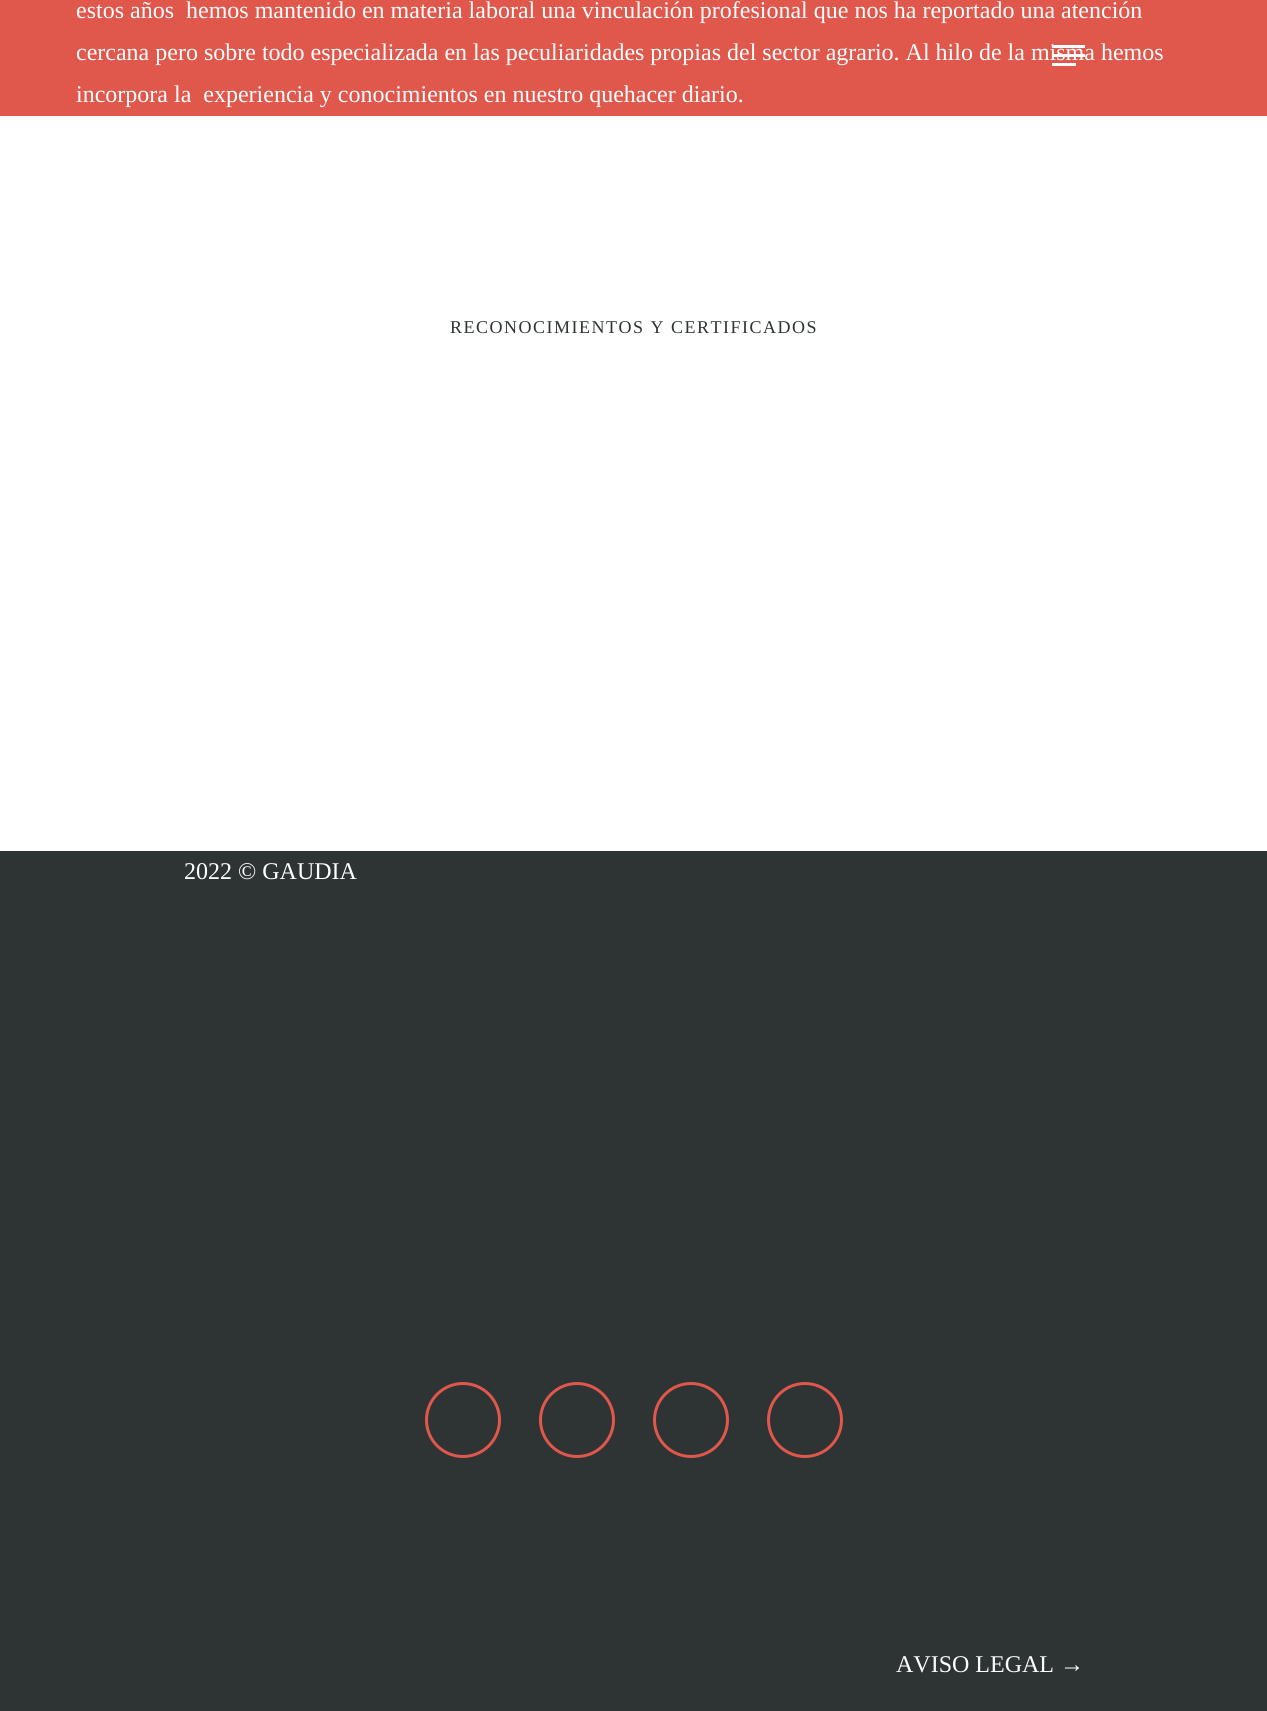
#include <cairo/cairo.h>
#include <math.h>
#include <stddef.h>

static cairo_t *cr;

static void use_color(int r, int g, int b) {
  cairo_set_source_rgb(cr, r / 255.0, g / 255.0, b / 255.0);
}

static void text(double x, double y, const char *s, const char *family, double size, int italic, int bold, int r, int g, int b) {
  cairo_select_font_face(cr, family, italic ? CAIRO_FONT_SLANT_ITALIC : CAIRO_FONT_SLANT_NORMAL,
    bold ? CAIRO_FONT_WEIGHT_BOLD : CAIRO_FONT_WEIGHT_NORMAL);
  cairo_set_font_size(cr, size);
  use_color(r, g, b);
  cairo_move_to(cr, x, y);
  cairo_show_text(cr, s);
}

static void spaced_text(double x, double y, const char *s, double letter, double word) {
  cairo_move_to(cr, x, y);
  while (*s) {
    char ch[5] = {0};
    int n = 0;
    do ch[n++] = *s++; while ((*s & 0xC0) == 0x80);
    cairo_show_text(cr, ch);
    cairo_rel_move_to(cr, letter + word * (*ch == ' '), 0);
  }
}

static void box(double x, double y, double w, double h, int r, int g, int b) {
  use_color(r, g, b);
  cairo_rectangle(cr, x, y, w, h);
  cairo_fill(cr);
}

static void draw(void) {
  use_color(255, 255, 255);
  cairo_paint(cr);
  box(0, 0, 1267, 116, 224, 87, 76);
  box(0, 851, 1267, 860, 46, 51, 51);
  cairo_arc(cr, 463, 1420, 36.5, 0, 2 * M_PI);
  use_color(224, 87, 76);
  cairo_set_line_width(cr, 3);
  cairo_stroke(cr);
  cairo_arc(cr, 577, 1420, 36.5, 0, 2 * M_PI);
  cairo_stroke(cr);
  cairo_arc(cr, 691, 1420, 36.5, 0, 2 * M_PI);
  cairo_stroke(cr);
  cairo_arc(cr, 805, 1420, 36.5, 0, 2 * M_PI);
  cairo_stroke(cr);
  box(1052, 45, 33, 3, 255, 255, 255);
  box(1052, 63, 24, 3, 255, 255, 255);
  box(1052, 54, 33, 3, 255, 255, 255);
  text(76, 18, "estos años  hemos mantenido en materia laboral una vinculación profesional que nos ha reportado una atención", "Liberation Serif", 24, 0, 0, 255, 255, 255);
  text(76, 60, "cercana pero sobre todo especializada en las peculiaridades propias del sector agrario. Al hilo de la misma hemos", "Liberation Serif", 24, 0, 0, 255, 255, 255);
  text(76, 102, "incorpora la  experiencia y conocimientos en nuestro quehacer diario.", "Liberation Serif", 24, 0, 0, 255, 255, 255);
  cairo_set_font_size(cr, 18);
  use_color(46, 51, 51);
  spaced_text(450, 333, "RECONOCIMIENTOS Y CERTIFICADOS", 1.5, 0);
  text(184, 879, "2022 © GAUDIA", "Liberation Serif", 24, 0, 0, 255, 255, 255);
  text(896, 1672, "AVISO LEGAL →", "Liberation Serif", 24, 0, 0, 255, 255, 255);
}

int main(void) {
  cairo_surface_t *surface = cairo_image_surface_create(CAIRO_FORMAT_RGB24, 1267, 1711);
  cr = cairo_create(surface);
  cairo_font_options_t *options = cairo_font_options_create();
  cairo_font_options_set_hint_metrics(options, CAIRO_HINT_METRICS_OFF);
  cairo_font_options_set_hint_style(options, CAIRO_HINT_STYLE_NONE);
  cairo_set_font_options(cr, options);
  cairo_set_miter_limit(cr, 4);
  draw();
  cairo_surface_write_to_png(surface, "out.png");
  cairo_font_options_destroy(options);
  cairo_destroy(cr);
  cairo_surface_destroy(surface);
  return 0;
}
